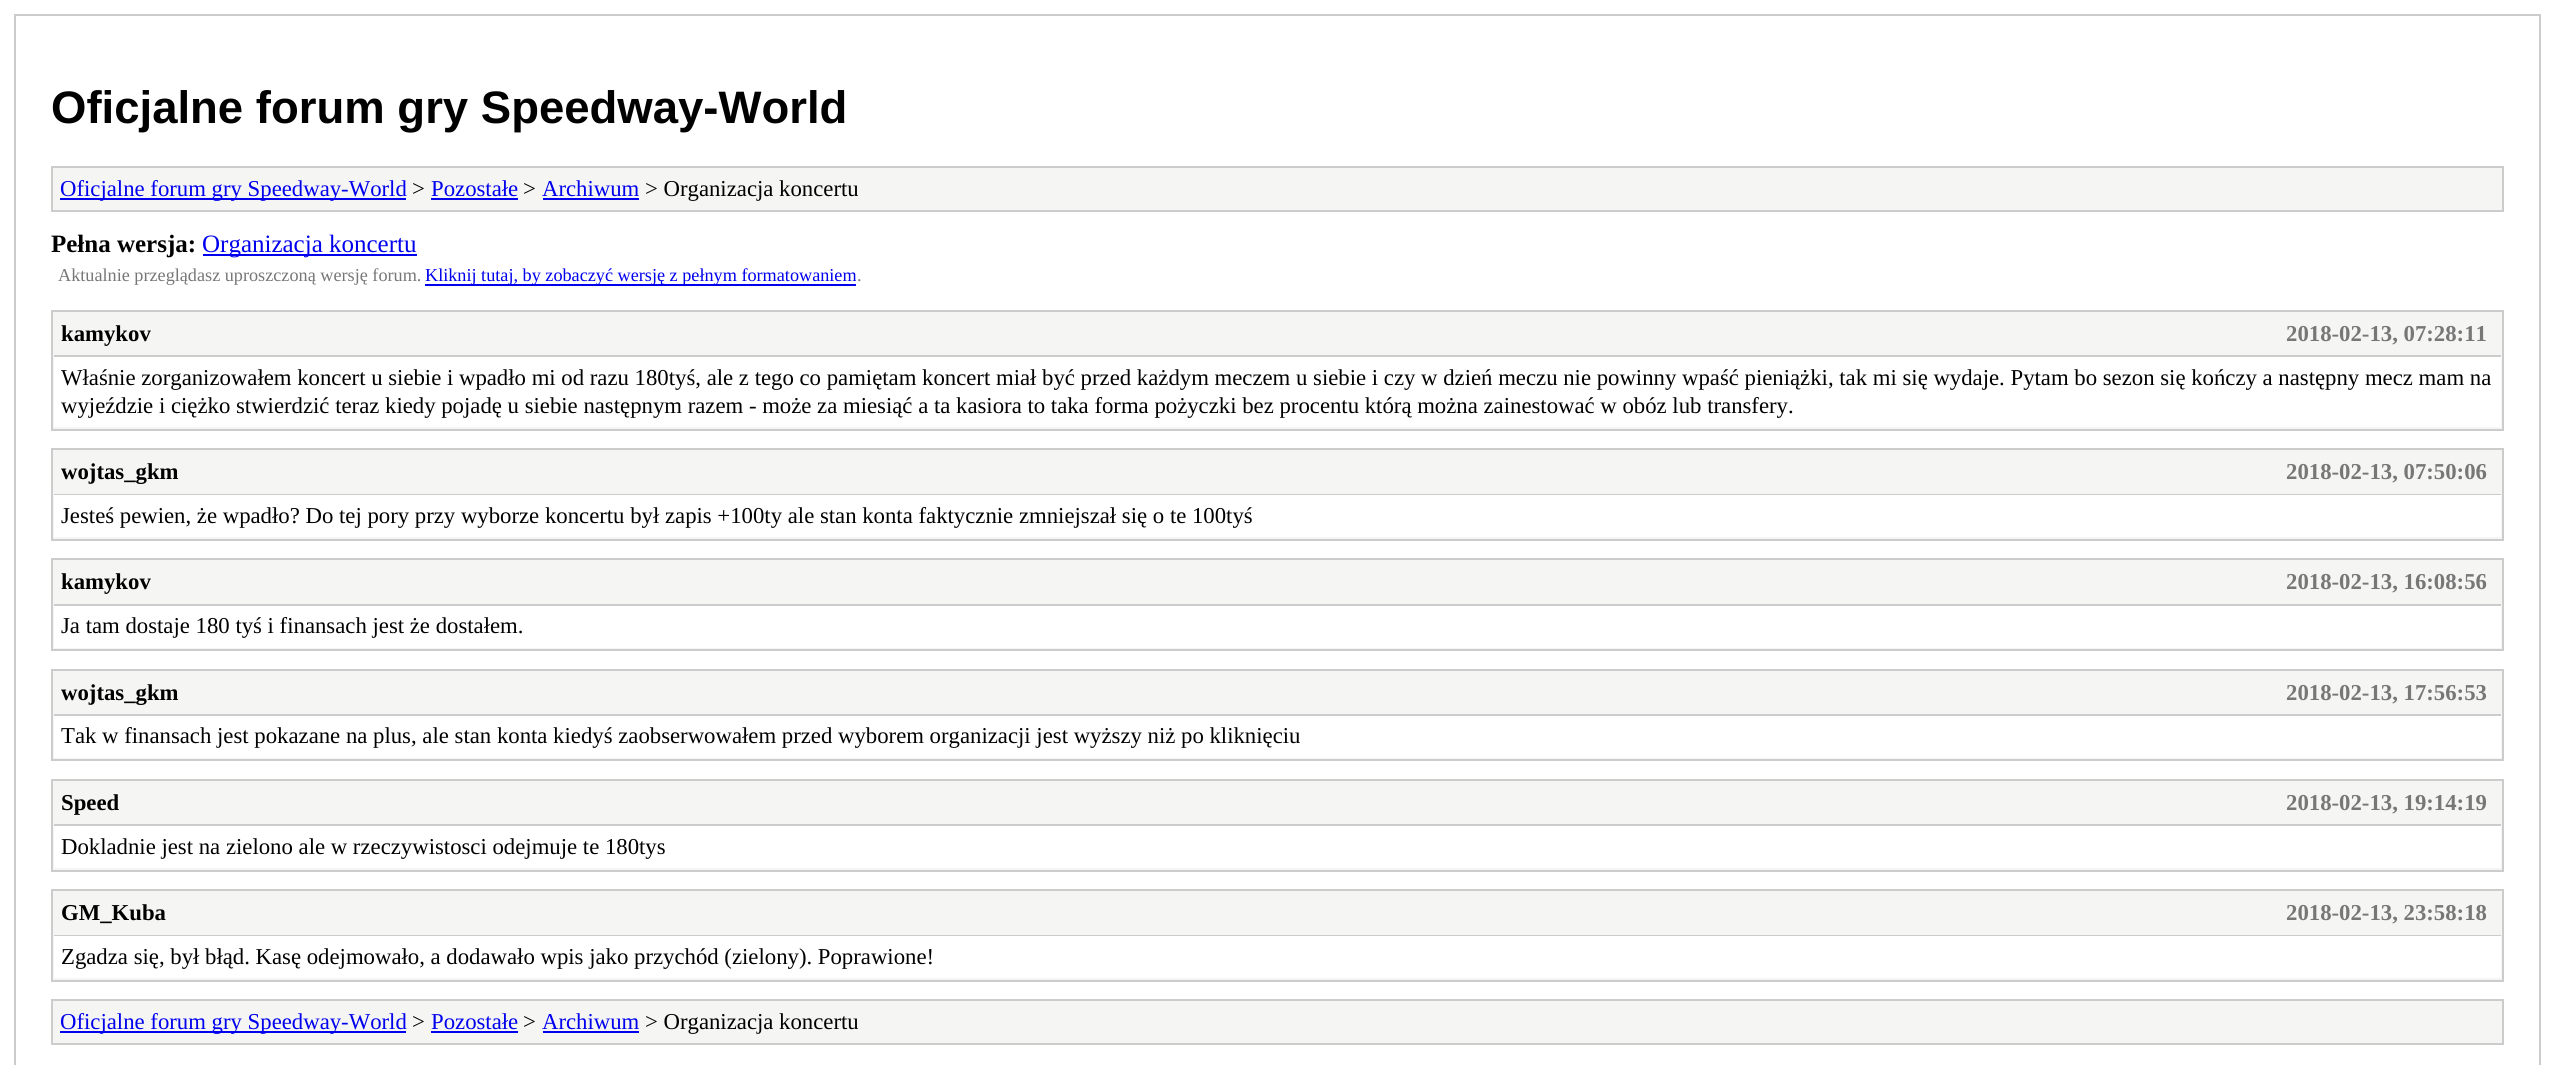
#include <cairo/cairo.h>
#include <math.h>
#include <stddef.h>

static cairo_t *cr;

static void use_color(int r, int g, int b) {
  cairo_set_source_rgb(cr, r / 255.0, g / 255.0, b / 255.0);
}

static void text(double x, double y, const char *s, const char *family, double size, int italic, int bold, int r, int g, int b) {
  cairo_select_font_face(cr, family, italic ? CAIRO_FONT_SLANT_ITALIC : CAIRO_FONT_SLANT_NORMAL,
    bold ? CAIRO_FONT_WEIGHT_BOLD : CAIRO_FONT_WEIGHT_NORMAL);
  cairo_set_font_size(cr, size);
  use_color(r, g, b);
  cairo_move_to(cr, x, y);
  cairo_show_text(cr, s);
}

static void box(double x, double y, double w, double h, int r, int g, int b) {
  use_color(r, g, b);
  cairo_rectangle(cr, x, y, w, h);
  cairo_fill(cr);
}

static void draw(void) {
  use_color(255, 255, 255);
  cairo_paint(cr);
  cairo_rectangle(cr, 15, 15, 2525, 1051);
  use_color(204, 204, 204);
  cairo_stroke(cr);
  use_color(245, 245, 244);
  cairo_rectangle(cr, 52, 167, 2451, 44);
  cairo_fill_preserve(cr);
  use_color(204, 204, 204);
  cairo_stroke(cr);
  box(60, 198, 346, 2, 0, 0, 238);
  box(431, 198, 87, 2, 0, 0, 238);
  box(543, 198, 96, 2, 0, 0, 238);
  box(203, 254, 214, 2, 0, 0, 238);
  box(425, 284, 431, 2, 0, 0, 238);
  use_color(245, 245, 244);
  cairo_rectangle(cr, 52, 311, 2451, 119);
  cairo_fill_preserve(cr);
  use_color(204, 204, 204);
  cairo_stroke(cr);
  box(54, 355, 2447, 2, 204, 204, 204);
  box(54, 357, 2447, 70, 255, 255, 255);
  use_color(245, 245, 244);
  cairo_rectangle(cr, 52, 449, 2451, 91);
  cairo_fill_preserve(cr);
  use_color(204, 204, 204);
  cairo_stroke(cr);
  box(54, 494, 2447, 1, 204, 204, 204);
  box(54, 495, 2447, 42, 255, 255, 255);
  use_color(245, 245, 244);
  cairo_rectangle(cr, 52, 559, 2451, 91);
  cairo_fill_preserve(cr);
  use_color(204, 204, 204);
  cairo_stroke(cr);
  box(54, 604, 2447, 2, 204, 204, 204);
  box(54, 606, 2447, 42, 255, 255, 255);
  use_color(245, 245, 244);
  cairo_rectangle(cr, 52, 670, 2451, 90);
  cairo_fill_preserve(cr);
  use_color(204, 204, 204);
  cairo_stroke(cr);
  box(54, 714, 2447, 2, 204, 204, 204);
  box(54, 716, 2447, 42, 255, 255, 255);
  use_color(245, 245, 244);
  cairo_rectangle(cr, 52, 780, 2451, 91);
  cairo_fill_preserve(cr);
  use_color(204, 204, 204);
  cairo_stroke(cr);
  box(54, 824, 2447, 2, 204, 204, 204);
  box(54, 826, 2447, 42, 255, 255, 255);
  use_color(245, 245, 244);
  cairo_rectangle(cr, 52, 890, 2451, 91);
  cairo_fill_preserve(cr);
  use_color(204, 204, 204);
  cairo_stroke(cr);
  box(54, 935, 2447, 1, 204, 204, 204);
  box(54, 936, 2447, 42, 255, 255, 255);
  use_color(245, 245, 244);
  cairo_rectangle(cr, 52, 1000, 2451, 44);
  cairo_fill_preserve(cr);
  use_color(204, 204, 204);
  cairo_stroke(cr);
  box(60, 1031, 346, 2, 0, 0, 238);
  box(431, 1031, 87, 2, 0, 0, 238);
  box(543, 1031, 96, 2, 0, 0, 238);
  text(51, 123, "Oficjalne forum gry Speedway-World", "Liberation Sans", 45.5, 0, 1, 0, 0, 0);
  text(60, 196, "Oficjalne forum gry Speedway-World", "Liberation Serif", 22.75, 0, 0, 0, 0, 238);
  text(412, 196, ">", "Liberation Serif", 22.75, 0, 0, 0, 0, 0);
  text(431, 196, "Pozostałe", "Liberation Serif", 22.75, 0, 0, 0, 0, 238);
  text(523, 196, ">", "Liberation Serif", 22.75, 0, 0, 0, 0, 0);
  text(542, 196, "Archiwum", "Liberation Serif", 22.75, 0, 0, 0, 0, 238);
  text(645, 196, "> Organizacja koncertu", "Liberation Serif", 22.75, 0, 0, 0, 0, 0);
  text(51, 252, "Pełna wersja:", "Liberation Serif", 25, 0, 1, 0, 0, 0);
  text(202, 252, "Organizacja koncertu", "Liberation Serif", 25, 0, 0, 0, 0, 238);
  text(58, 281, "Aktualnie przeglądasz uproszczoną wersję forum.", "Liberation Serif", 18.2, 0, 0, 119, 119, 119);
  text(425, 281, "Kliknij tutaj, by zobaczyć wersję z pełnym formatowaniem", "Liberation Serif", 18.2, 0, 0, 0, 0, 238);
  text(857, 281, ".", "Liberation Serif", 18.2, 0, 0, 119, 119, 119);
  text(61, 341, "kamykov", "Liberation Serif", 22.75, 0, 1, 0, 0, 0);
  text(2286, 341, "2018-02-13, 07:28:11", "Liberation Serif", 22.75, 0, 1, 119, 119, 119);
  text(61, 385, "Właśnie zorganizowałem koncert u siebie i wpadło mi od razu 180tyś, ale z tego co pamiętam koncert miał być przed każdym meczem u siebie i czy w dzień meczu nie powinny wpaść pieniążki, tak mi się wydaje. Pytam bo sezon się kończy a następny mecz mam na", "Liberation Serif", 22.75, 0, 0, 0, 0, 0);
  text(61, 413, "wyjeździe i ciężko stwierdzić teraz kiedy pojadę u siebie następnym razem - może za miesiąć a ta kasiora to taka forma pożyczki bez procentu którą można zainestować w obóz lub transfery.", "Liberation Serif", 22.75, 0, 0, 0, 0, 0);
  text(61, 479, "wojtas_gkm", "Liberation Serif", 22.75, 0, 1, 0, 0, 0);
  text(2286, 479, "2018-02-13, 07:50:06", "Liberation Serif", 22.75, 0, 1, 119, 119, 119);
  text(61, 523, "Jesteś pewien, że wpadło? Do tej pory przy wyborze koncertu był zapis +100ty ale stan konta faktycznie zmniejszał się o te 100tyś", "Liberation Serif", 22.75, 0, 0, 0, 0, 0);
  text(61, 589, "kamykov", "Liberation Serif", 22.75, 0, 1, 0, 0, 0);
  text(2286, 589, "2018-02-13, 16:08:56", "Liberation Serif", 22.75, 0, 1, 119, 119, 119);
  text(61, 633, "Ja tam dostaje 180 tyś i finansach jest że dostałem.", "Liberation Serif", 22.75, 0, 0, 0, 0, 0);
  text(61, 700, "wojtas_gkm", "Liberation Serif", 22.75, 0, 1, 0, 0, 0);
  text(2286, 700, "2018-02-13, 17:56:53", "Liberation Serif", 22.75, 0, 1, 119, 119, 119);
  text(61, 743, "Tak w finansach jest pokazane na plus, ale stan konta kiedyś zaobserwowałem przed wyborem organizacji jest wyższy niż po kliknięciu", "Liberation Serif", 22.75, 0, 0, 0, 0, 0);
  text(61, 810, "Speed", "Liberation Serif", 22.75, 0, 1, 0, 0, 0);
  text(2286, 810, "2018-02-13, 19:14:19", "Liberation Serif", 22.75, 0, 1, 119, 119, 119);
  text(61, 854, "Dokladnie jest na zielono ale w rzeczywistosci odejmuje te 180tys", "Liberation Serif", 22.75, 0, 0, 0, 0, 0);
  text(61, 920, "GM_Kuba", "Liberation Serif", 22.75, 0, 1, 0, 0, 0);
  text(2286, 920, "2018-02-13, 23:58:18", "Liberation Serif", 22.75, 0, 1, 119, 119, 119);
  text(61, 964, "Zgadza się, był błąd. Kasę odejmowało, a dodawało wpis jako przychód (zielony). Poprawione!", "Liberation Serif", 22.75, 0, 0, 0, 0, 0);
  text(60, 1029, "Oficjalne forum gry Speedway-World", "Liberation Serif", 22.75, 0, 0, 0, 0, 238);
  text(412, 1029, ">", "Liberation Serif", 22.75, 0, 0, 0, 0, 0);
  text(431, 1029, "Pozostałe", "Liberation Serif", 22.75, 0, 0, 0, 0, 238);
  text(523, 1029, ">", "Liberation Serif", 22.75, 0, 0, 0, 0, 0);
  text(542, 1029, "Archiwum", "Liberation Serif", 22.75, 0, 0, 0, 0, 238);
  text(645, 1029, "> Organizacja koncertu", "Liberation Serif", 22.75, 0, 0, 0, 0, 0);
}

int main(void) {
  cairo_surface_t *surface = cairo_image_surface_create(CAIRO_FORMAT_RGB24, 2554, 1065);
  cr = cairo_create(surface);
  cairo_font_options_t *options = cairo_font_options_create();
  cairo_font_options_set_hint_metrics(options, CAIRO_HINT_METRICS_OFF);
  cairo_font_options_set_hint_style(options, CAIRO_HINT_STYLE_NONE);
  cairo_set_font_options(cr, options);
  cairo_set_miter_limit(cr, 4);
  draw();
  cairo_surface_write_to_png(surface, "out.png");
  cairo_font_options_destroy(options);
  cairo_destroy(cr);
  cairo_surface_destroy(surface);
  return 0;
}
